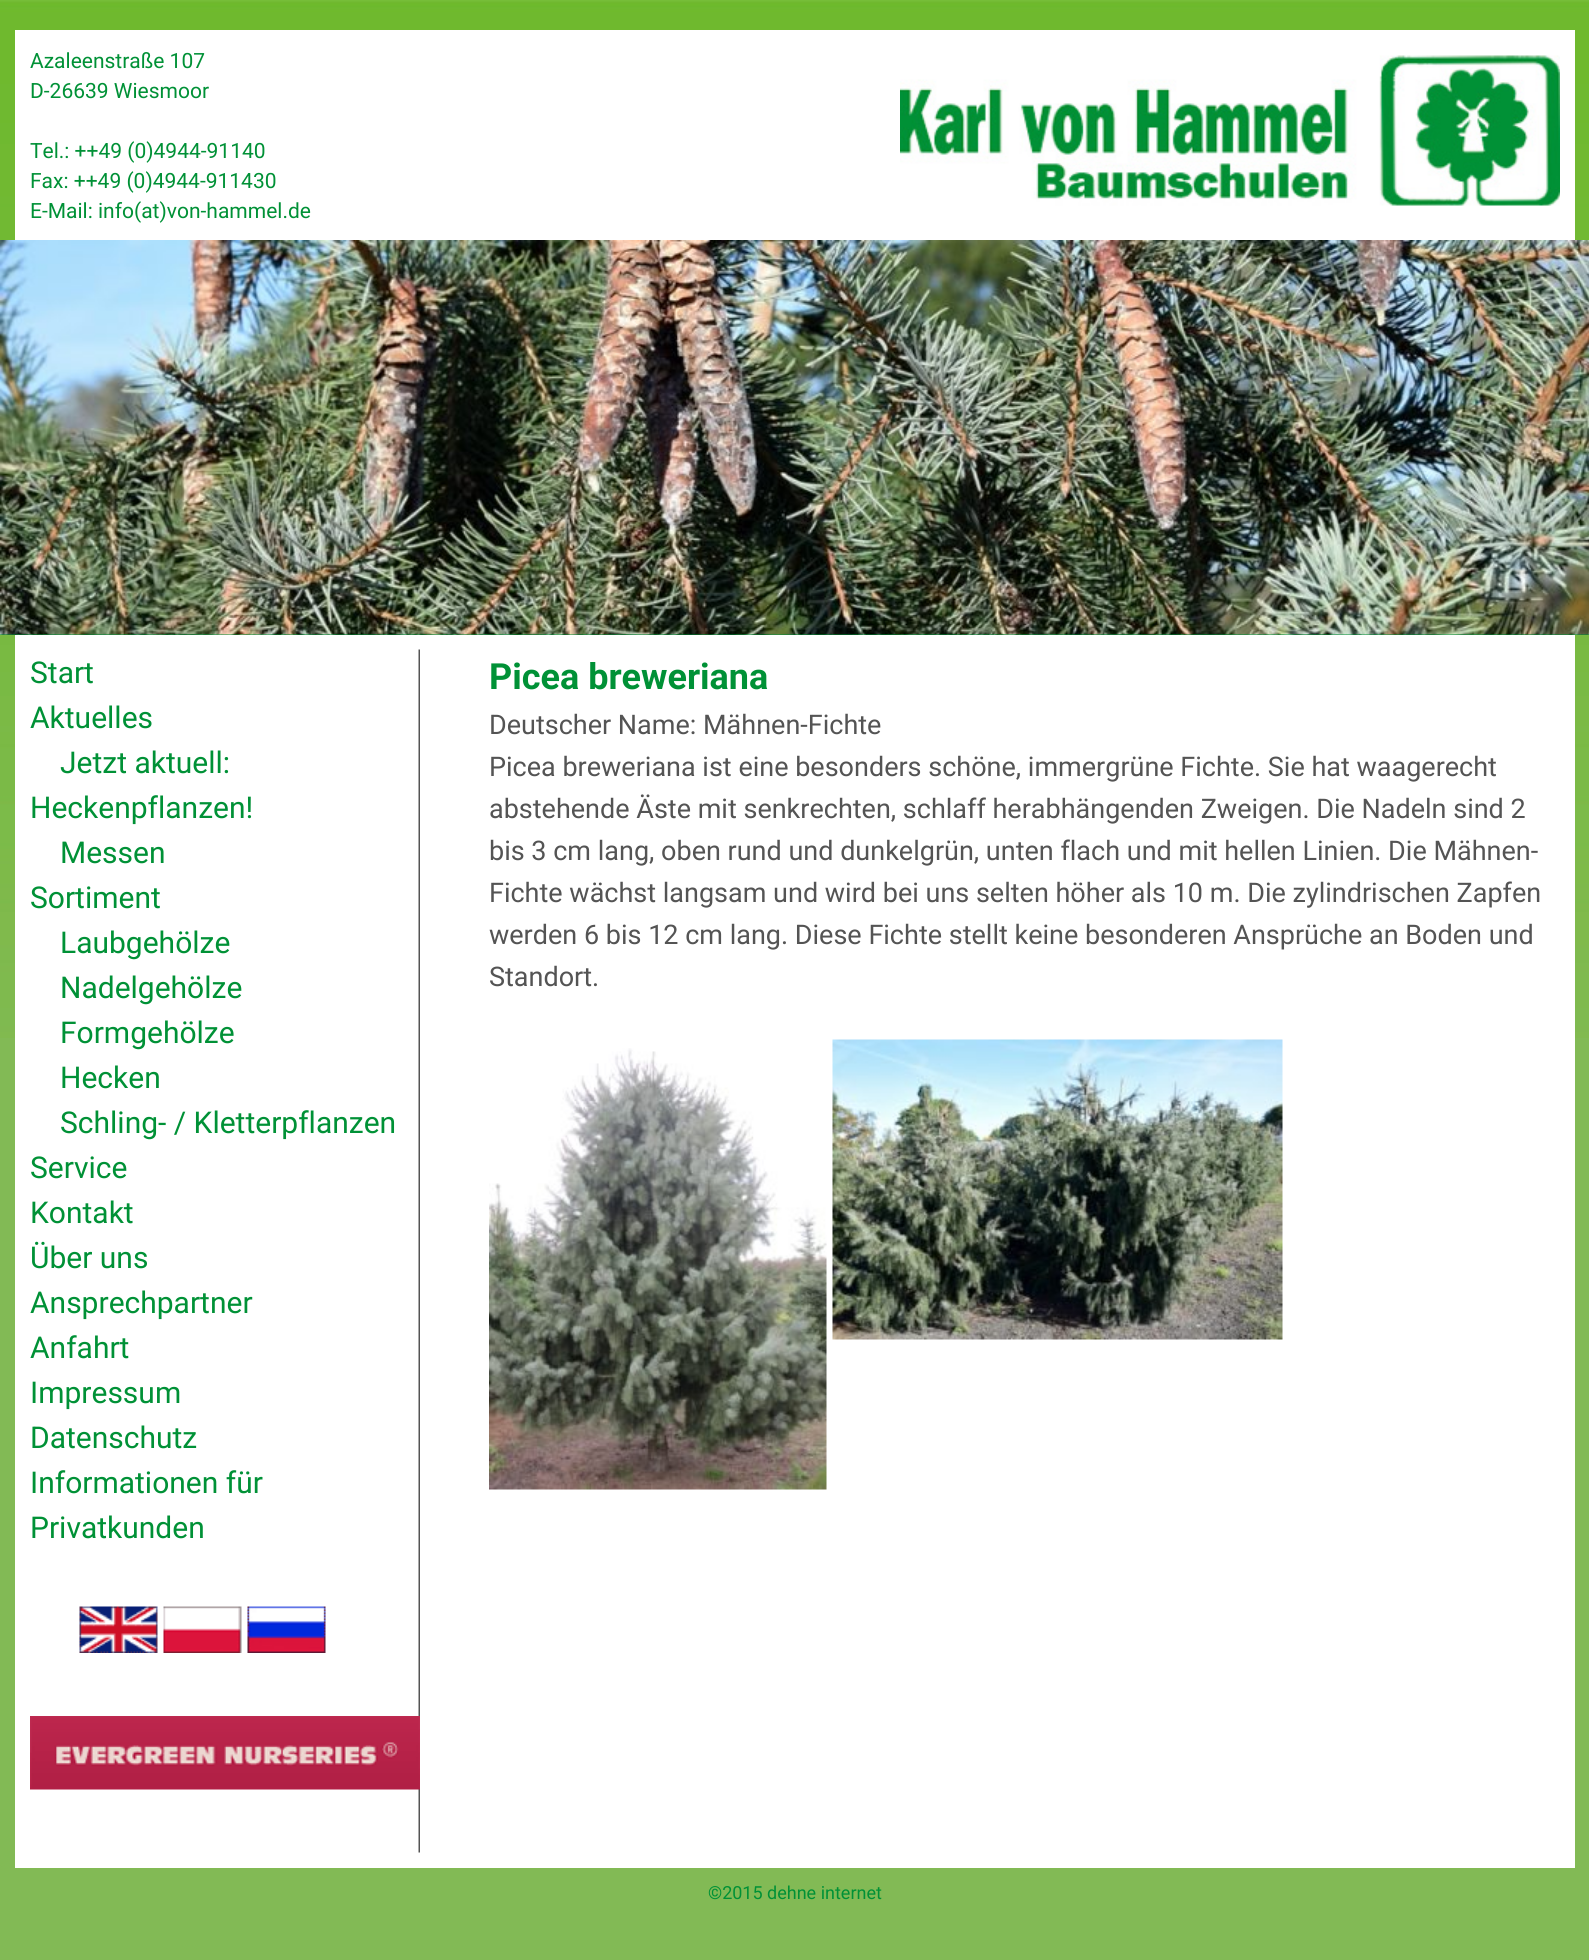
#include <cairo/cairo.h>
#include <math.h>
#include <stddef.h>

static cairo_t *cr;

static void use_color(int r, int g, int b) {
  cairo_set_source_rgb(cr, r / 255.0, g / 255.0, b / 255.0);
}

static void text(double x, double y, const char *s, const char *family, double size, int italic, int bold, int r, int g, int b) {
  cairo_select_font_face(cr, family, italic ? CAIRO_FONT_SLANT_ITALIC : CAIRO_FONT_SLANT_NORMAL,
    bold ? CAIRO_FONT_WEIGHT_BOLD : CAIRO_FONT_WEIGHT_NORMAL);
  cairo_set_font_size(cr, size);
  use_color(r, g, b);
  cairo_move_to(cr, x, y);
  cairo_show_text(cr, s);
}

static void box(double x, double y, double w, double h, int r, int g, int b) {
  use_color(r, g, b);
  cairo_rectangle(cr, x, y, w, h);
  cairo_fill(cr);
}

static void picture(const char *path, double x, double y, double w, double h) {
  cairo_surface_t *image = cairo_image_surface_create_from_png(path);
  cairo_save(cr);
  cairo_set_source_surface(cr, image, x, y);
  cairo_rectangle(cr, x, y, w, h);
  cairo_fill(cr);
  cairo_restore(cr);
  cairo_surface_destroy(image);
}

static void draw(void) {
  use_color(130, 186, 85);
  cairo_paint(cr);
  picture("img_01.png", 0, 0, 1589, 1038);
  box(15, 30, 1560, 210, 255, 255, 255);
  picture("img_02.png", 900, 55, 660, 151);
  box(0, 634, 1589, 1, 0, 145, 54);
  picture("img_03.png", 0, 240, 1589, 395);
  box(15, 635, 1560, 1233, 255, 255, 255);
  picture("img_04.png", 418, 649, 2, 1204);
  picture("img_05.png", 79, 1606, 79, 47);
  picture("img_06.png", 163, 1606, 79, 47);
  picture("img_07.png", 247, 1606, 79, 47);
  picture("img_08.png", 30, 1716, 390, 74);
  picture("img_09.png", 489, 1048, 338, 442);
  picture("img_10.png", 832, 1039, 451, 301);
  text(30, 68, "Azaleenstraße 107", "Roboto", 21, 0, 0, 0, 145, 54);
  text(30, 98, "D-26639 Wiesmoor", "Roboto", 21, 0, 0, 0, 145, 54);
  text(30, 158, "Tel.: ++49 (0)4944-91140", "Roboto", 21, 0, 0, 0, 145, 54);
  text(30, 188, "Fax: ++49 (0)4944-911430", "Roboto", 21, 0, 0, 0, 145, 54);
  text(30, 218, "E-Mail: info(at)von-hammel.de", "Roboto", 21, 0, 0, 0, 145, 54);
  text(30, 683, "Start", "Roboto", 30, 0, 0, 0, 145, 54);
  text(30, 728, "Aktuelles", "Roboto", 30, 0, 0, 0, 145, 54);
  text(60, 773, "Jetzt aktuell:", "Roboto", 30, 0, 0, 0, 145, 54);
  text(30, 818, "Heckenpflanzen!", "Roboto", 30, 0, 0, 0, 145, 54);
  text(60, 863, "Messen", "Roboto", 30, 0, 0, 0, 145, 54);
  text(30, 908, "Sortiment", "Roboto", 30, 0, 0, 0, 145, 54);
  text(60, 953, "Laubgehölze", "Roboto", 30, 0, 0, 0, 145, 54);
  text(60, 998, "Nadelgehölze", "Roboto", 30, 0, 0, 0, 145, 54);
  text(60, 1043, "Formgehölze", "Roboto", 30, 0, 0, 0, 145, 54);
  text(60, 1088, "Hecken", "Roboto", 30, 0, 0, 0, 145, 54);
  text(60, 1133, "Schling- / Kletterpflanzen", "Roboto", 30, 0, 0, 0, 145, 54);
  text(30, 1178, "Service", "Roboto", 30, 0, 0, 0, 145, 54);
  text(30, 1223, "Kontakt", "Roboto", 30, 0, 0, 0, 145, 54);
  text(30, 1268, "Über uns", "Roboto", 30, 0, 0, 0, 145, 54);
  text(30, 1313, "Ansprechpartner", "Roboto", 30, 0, 0, 0, 145, 54);
  text(30, 1358, "Anfahrt", "Roboto", 30, 0, 0, 0, 145, 54);
  text(30, 1403, "Impressum", "Roboto", 30, 0, 0, 0, 145, 54);
  text(30, 1448, "Datenschutz", "Roboto", 30, 0, 0, 0, 145, 54);
  text(30, 1493, "Informationen für", "Roboto", 30, 0, 0, 0, 145, 54);
  text(30, 1538, "Privatkunden", "Roboto", 30, 0, 0, 0, 145, 54);
  text(489, 689, "Picea breweriana", "Roboto", 36, 0, 1, 0, 145, 54);
  text(489, 734, "Deutscher Name: Mähnen-Fichte", "Roboto", 27, 0, 0, 84, 84, 84);
  text(489, 776, "Picea breweriana ist eine besonders schöne, immergrüne Fichte. Sie hat waagerecht", "Roboto", 27, 0, 0, 84, 84, 84);
  text(489, 818, "abstehende Äste mit senkrechten, schlaff herabhängenden Zweigen. Die Nadeln sind 2", "Roboto", 27, 0, 0, 84, 84, 84);
  text(489, 860, "bis 3 cm lang, oben rund und dunkelgrün, unten flach und mit hellen Linien. Die Mähnen-", "Roboto", 27, 0, 0, 84, 84, 84);
  text(489, 902, "Fichte wächst langsam und wird bei uns selten höher als 10 m. Die zylindrischen Zapfen", "Roboto", 27, 0, 0, 84, 84, 84);
  text(489, 944, "werden 6 bis 12 cm lang. Diese Fichte stellt keine besonderen Ansprüche an Boden und", "Roboto", 27, 0, 0, 84, 84, 84);
  text(489, 986, "Standort.", "Roboto", 27, 0, 0, 84, 84, 84);
  text(708, 1899, "©2015 dehne internet", "Roboto", 18, 0, 0, 0, 145, 54);
}

int main(void) {
  cairo_surface_t *surface = cairo_image_surface_create(CAIRO_FORMAT_RGB24, 1589, 1960);
  cr = cairo_create(surface);
  cairo_font_options_t *options = cairo_font_options_create();
  cairo_font_options_set_hint_metrics(options, CAIRO_HINT_METRICS_OFF);
  cairo_font_options_set_hint_style(options, CAIRO_HINT_STYLE_NONE);
  cairo_set_font_options(cr, options);
  cairo_set_miter_limit(cr, 4);
  draw();
  cairo_surface_write_to_png(surface, "out.png");
  cairo_font_options_destroy(options);
  cairo_destroy(cr);
  cairo_surface_destroy(surface);
  return 0;
}
